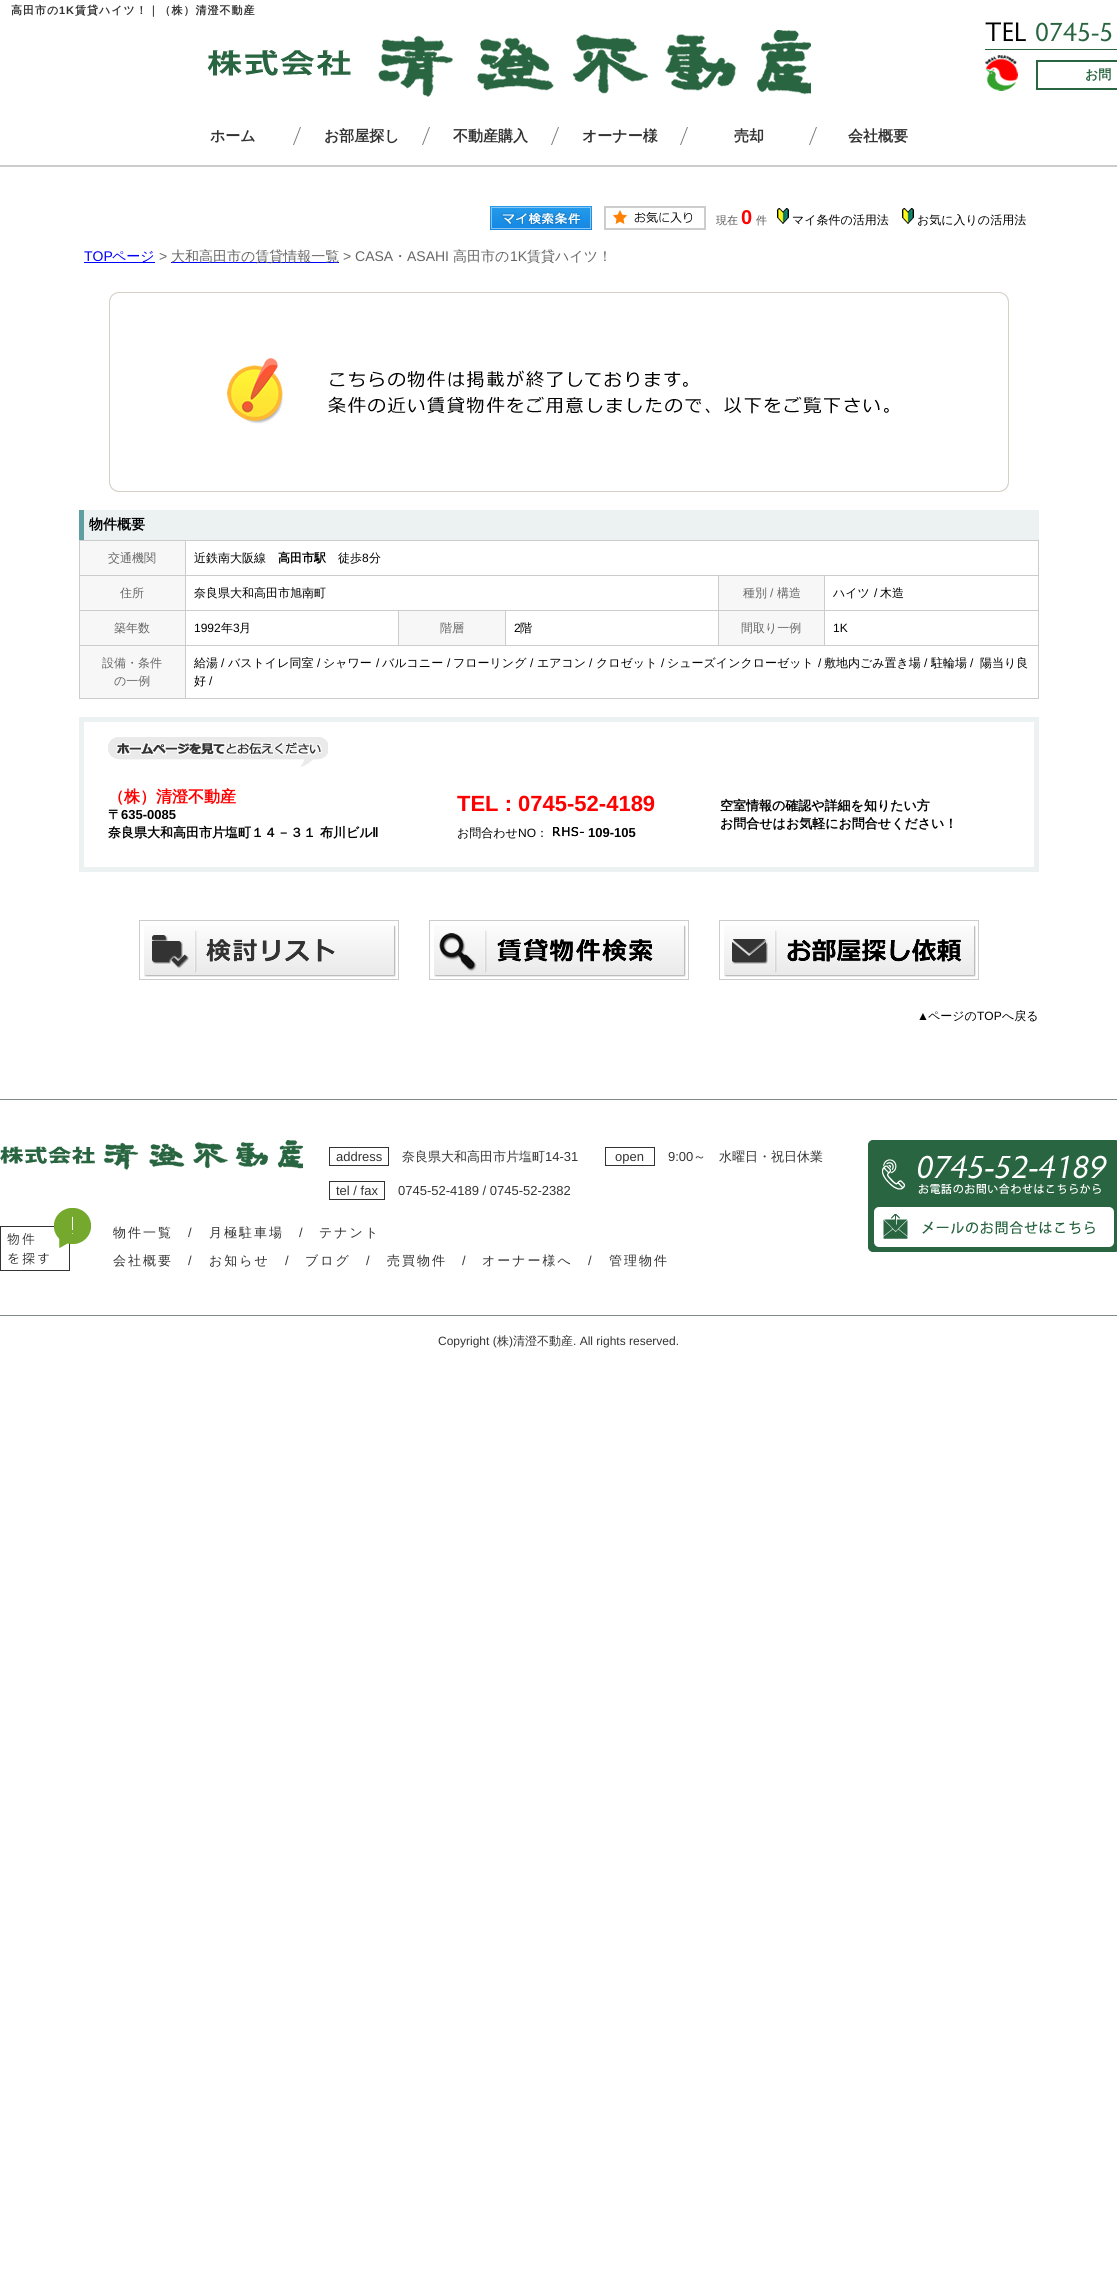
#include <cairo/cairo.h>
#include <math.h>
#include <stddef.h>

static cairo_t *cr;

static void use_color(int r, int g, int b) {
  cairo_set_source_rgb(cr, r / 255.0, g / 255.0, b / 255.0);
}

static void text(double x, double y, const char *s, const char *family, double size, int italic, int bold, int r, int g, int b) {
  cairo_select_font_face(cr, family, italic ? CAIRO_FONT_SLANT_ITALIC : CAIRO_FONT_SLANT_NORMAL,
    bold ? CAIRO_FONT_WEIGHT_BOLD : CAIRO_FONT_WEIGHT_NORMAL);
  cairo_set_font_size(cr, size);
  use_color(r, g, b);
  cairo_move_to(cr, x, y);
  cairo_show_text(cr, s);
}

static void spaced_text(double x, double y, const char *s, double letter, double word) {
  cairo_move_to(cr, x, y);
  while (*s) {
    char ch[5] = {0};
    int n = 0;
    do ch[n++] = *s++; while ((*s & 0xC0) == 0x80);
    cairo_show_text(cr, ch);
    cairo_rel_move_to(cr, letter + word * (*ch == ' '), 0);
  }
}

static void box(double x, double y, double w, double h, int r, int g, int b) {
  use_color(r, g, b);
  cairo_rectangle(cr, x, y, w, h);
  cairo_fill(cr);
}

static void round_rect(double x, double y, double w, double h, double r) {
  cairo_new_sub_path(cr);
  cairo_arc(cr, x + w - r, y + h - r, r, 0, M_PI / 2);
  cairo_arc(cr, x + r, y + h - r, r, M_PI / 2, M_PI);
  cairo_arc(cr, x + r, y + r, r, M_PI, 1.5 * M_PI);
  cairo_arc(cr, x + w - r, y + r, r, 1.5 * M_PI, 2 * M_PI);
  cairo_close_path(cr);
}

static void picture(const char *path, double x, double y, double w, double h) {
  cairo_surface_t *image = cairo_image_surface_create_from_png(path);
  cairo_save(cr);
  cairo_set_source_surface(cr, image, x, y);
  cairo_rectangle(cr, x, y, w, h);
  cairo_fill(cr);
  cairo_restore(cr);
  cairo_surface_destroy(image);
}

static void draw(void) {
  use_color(255, 255, 255);
  cairo_paint(cr);
  box(0, 165, 1117, 2, 204, 204, 204);
  picture("img_01.png", 207, 30, 604, 67);
  box(985, 49, 132, 1, 40, 101, 64);
  picture("img_02.png", 985, 55, 33, 36);
  cairo_rectangle(cr, 1037, 61, 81, 28);
  cairo_stroke(cr);
  use_color(119, 119, 119);
  cairo_new_path(cr);
  cairo_move_to(cr, 300, 127);
  cairo_line_to(cr, 301, 127);
  cairo_line_to(cr, 294, 145);
  cairo_line_to(cr, 293, 145);
  cairo_close_path(cr);
  cairo_fill(cr);
  cairo_new_path(cr);
  cairo_move_to(cr, 429, 127);
  cairo_line_to(cr, 430, 127);
  cairo_line_to(cr, 423, 145);
  cairo_line_to(cr, 422, 145);
  cairo_close_path(cr);
  cairo_fill(cr);
  cairo_new_path(cr);
  cairo_move_to(cr, 558, 127);
  cairo_line_to(cr, 559, 127);
  cairo_line_to(cr, 552, 145);
  cairo_line_to(cr, 551, 145);
  cairo_close_path(cr);
  cairo_fill(cr);
  cairo_new_path(cr);
  cairo_move_to(cr, 687, 127);
  cairo_line_to(cr, 688, 127);
  cairo_line_to(cr, 681, 145);
  cairo_line_to(cr, 680, 145);
  cairo_close_path(cr);
  cairo_fill(cr);
  cairo_new_path(cr);
  cairo_move_to(cr, 816, 127);
  cairo_line_to(cr, 817, 127);
  cairo_line_to(cr, 810, 145);
  cairo_line_to(cr, 809, 145);
  cairo_close_path(cr);
  cairo_fill(cr);
  picture("img_03.png", 490, 206, 102, 24);
  picture("img_04.png", 604, 206, 102, 24);
  picture("img_05.png", 777, 208, 12, 16);
  picture("img_05.png", 902, 208, 12, 16);
  box(84, 262, 71, 1, 0, 0, 255);
  box(171, 262, 168, 1, 0, 0, 255);
  picture("img_06.png", 109, 292, 900, 200);
  box(84, 510, 955, 30, 236, 242, 242);
  box(79, 510, 5, 30, 96, 159, 159);
  box(79, 540, 960, 1, 204, 204, 204);
  box(1038, 540, 1, 159, 204, 204, 204);
  box(79, 698, 960, 1, 204, 204, 204);
  box(79, 540, 1, 159, 204, 204, 204);
  box(80, 541, 105, 34, 247, 247, 247);
  box(824, 575, 215, 1, 204, 204, 204);
  box(824, 610, 215, 1, 204, 204, 204);
  box(185, 645, 854, 1, 204, 204, 204);
  box(824, 610, 1, 36, 204, 204, 204);
  box(718, 610, 107, 1, 204, 204, 204);
  box(824, 575, 1, 36, 204, 204, 204);
  box(718, 575, 107, 1, 204, 204, 204);
  box(718, 610, 1, 36, 204, 204, 204);
  box(505, 610, 214, 1, 204, 204, 204);
  box(718, 575, 1, 36, 204, 204, 204);
  box(185, 575, 534, 1, 204, 204, 204);
  box(505, 610, 1, 36, 204, 204, 204);
  box(398, 610, 108, 1, 204, 204, 204);
  box(398, 610, 1, 36, 204, 204, 204);
  box(185, 610, 214, 1, 204, 204, 204);
  box(185, 645, 1, 54, 204, 204, 204);
  box(79, 645, 107, 1, 204, 204, 204);
  box(185, 610, 1, 36, 204, 204, 204);
  box(79, 610, 107, 1, 204, 204, 204);
  box(185, 575, 1, 36, 204, 204, 204);
  box(79, 575, 107, 1, 204, 204, 204);
  box(185, 540, 1, 36, 204, 204, 204);
  box(80, 576, 105, 34, 247, 247, 247);
  box(719, 576, 105, 34, 247, 247, 247);
  box(80, 611, 105, 34, 247, 247, 247);
  box(399, 611, 106, 34, 247, 247, 247);
  box(719, 611, 105, 34, 247, 247, 247);
  box(80, 646, 105, 52, 247, 247, 247);
  cairo_rectangle(cr, 81.5, 719.5, 955, 150);
  use_color(236, 242, 242);
  cairo_set_line_width(cr, 5);
  cairo_stroke(cr);
  picture("img_07.png", 108, 737, 220, 30);
  picture("img_08.png", 553, 827, 31, 10);
  picture("img_09.png", 139, 920, 260, 60);
  picture("img_10.png", 429, 920, 260, 60);
  picture("img_11.png", 719, 920, 260, 60);
  box(0, 1099, 1117, 1, 128, 140, 132);
  picture("img_12.png", 0, 1140, 303, 30);
  cairo_rectangle(cr, 329.5, 1147.5, 59, 18);
  use_color(51, 51, 51);
  cairo_set_line_width(cr, 1);
  cairo_stroke(cr);
  cairo_rectangle(cr, 605.5, 1147.5, 49, 18);
  cairo_stroke(cr);
  cairo_rectangle(cr, 329.5, 1181.5, 55, 18);
  cairo_stroke(cr);
  picture("img_13.png", 0, 1208, 91, 63);
  use_color(41, 101, 65);
  round_rect(868.5, 1140.5, 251, 111, 4.5);
  cairo_fill_preserve(cr);
  cairo_stroke(cr);
  picture("img_14.png", 882, 1155, 225, 39);
  use_color(255, 255, 255);
  round_rect(874, 1207, 240, 40, 5);
  cairo_fill(cr);
  picture("img_15.png", 883, 1214, 212, 25);
  box(0, 1315, 1117, 1, 128, 140, 132);
  cairo_select_font_face(cr, "WenQuanYi Zen Hei", CAIRO_FONT_SLANT_NORMAL, CAIRO_FONT_WEIGHT_BOLD);
  cairo_set_font_size(cr, 11);
  use_color(51, 51, 51);
  spaced_text(11, 14, "高田市の", 1, 0);
  cairo_select_font_face(cr, "Liberation Sans", CAIRO_FONT_SLANT_NORMAL, CAIRO_FONT_WEIGHT_BOLD);
  spaced_text(59, 14, "1K", 1, 0);
  cairo_select_font_face(cr, "WenQuanYi Zen Hei", CAIRO_FONT_SLANT_NORMAL, CAIRO_FONT_WEIGHT_BOLD);
  spaced_text(75, 14, "賃貸ハイツ！｜（株）清澄不動産", 1, 0);
  text(985, 41, "TEL", "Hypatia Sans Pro", 27, 0, 0, 0, 0, 0);
  text(1035, 41, "0745-5", "Hypatia Sans Pro", 27, 0, 0, 40, 101, 64);
  text(1085, 79, "お問", "WenQuanYi Zen Hei", 13, 0, 1, 40, 101, 64);
  text(210, 141, "ホーム", "WenQuanYi Zen Hei", 15, 0, 1, 51, 51, 51);
  text(324, 141, "お部屋探し", "WenQuanYi Zen Hei", 15, 0, 1, 51, 51, 51);
  text(453, 141, "不動産購入", "WenQuanYi Zen Hei", 15, 0, 1, 51, 51, 51);
  text(582, 141, "オーナー様", "WenQuanYi Zen Hei", 15, 0, 1, 51, 51, 51);
  text(734, 141, "売却", "WenQuanYi Zen Hei", 15, 0, 1, 51, 51, 51);
  text(848, 141, "会社概要", "WenQuanYi Zen Hei", 15, 0, 1, 51, 51, 51);
  text(716, 224, "現在", "WenQuanYi Zen Hei Medium", 11, 0, 0, 85, 85, 85);
  text(741, 224, "0", "Liberation Sans", 20, 0, 1, 255, 0, 0);
  text(756, 224, "件", "WenQuanYi Zen Hei Medium", 11, 0, 0, 85, 85, 85);
  text(792, 224, "マイ条件の活用法", "WenQuanYi Zen Hei Medium", 12, 0, 0, 0, 0, 0);
  text(917, 224, "お気に入りの活用法", "WenQuanYi Zen Hei Medium", 12, 0, 0, 0, 0, 0);
  text(84, 261, "TOP", "Liberation Sans", 14, 0, 0, 0, 0, 255);
  text(112, 261, "ページ", "WenQuanYi Zen Hei Medium", 14, 0, 0, 0, 0, 255);
  text(159, 261, ">", "Liberation Sans", 14, 0, 0, 102, 102, 102);
  text(171, 261, "大和高田市の賃貸情報一覧", "WenQuanYi Zen Hei Medium", 14, 0, 0, 102, 102, 102);
  text(343, 261, "> CASA", "Liberation Sans", 14, 0, 0, 102, 102, 102);
  text(393, 261, "・", "WenQuanYi Zen Hei Medium", 14, 0, 0, 102, 102, 102);
  text(407, 261, "ASAHI", "Liberation Sans", 14, 0, 0, 102, 102, 102);
  text(453, 261, "高田市の", "WenQuanYi Zen Hei Medium", 14, 0, 0, 102, 102, 102);
  text(510, 261, "1K", "Liberation Sans", 14, 0, 0, 102, 102, 102);
  text(527, 261, "賃貸ハイツ！", "WenQuanYi Zen Hei Medium", 14, 0, 0, 102, 102, 102);
  text(89, 529, "物件概要", "WenQuanYi Zen Hei", 14, 0, 1, 0, 0, 0);
  text(108, 562, "交通機関", "WenQuanYi Zen Hei Medium", 12, 0, 0, 102, 102, 102);
  text(194, 562, "近鉄南大阪線", "WenQuanYi Zen Hei Medium", 12, 0, 0, 0, 0, 0);
  text(278, 562, "高田市駅", "WenQuanYi Zen Hei", 12, 0, 1, 0, 0, 0);
  text(338, 562, "徒歩", "WenQuanYi Zen Hei Medium", 12, 0, 0, 0, 0, 0);
  text(362, 562, "8", "Liberation Sans", 12, 0, 0, 0, 0, 0);
  text(369, 562, "分", "WenQuanYi Zen Hei Medium", 12, 0, 0, 0, 0, 0);
  text(120, 597, "住所", "WenQuanYi Zen Hei Medium", 12, 0, 0, 102, 102, 102);
  text(194, 597, "奈良県大和高田市旭南町", "WenQuanYi Zen Hei Medium", 12, 0, 0, 0, 0, 0);
  text(743, 597, "種別", "WenQuanYi Zen Hei Medium", 12, 0, 0, 102, 102, 102);
  text(770, 597, "/", "Liberation Sans", 12, 0, 0, 102, 102, 102);
  text(777, 597, "構造", "WenQuanYi Zen Hei Medium", 12, 0, 0, 102, 102, 102);
  text(833, 597, "ハイツ", "WenQuanYi Zen Hei Medium", 12, 0, 0, 0, 0, 0);
  text(874, 597, "/", "Liberation Sans", 12, 0, 0, 0, 0, 0);
  text(880, 597, "木造", "WenQuanYi Zen Hei Medium", 12, 0, 0, 0, 0, 0);
  text(114, 632, "築年数", "WenQuanYi Zen Hei Medium", 12, 0, 0, 102, 102, 102);
  text(194, 632, "1992", "Liberation Sans", 12, 0, 0, 0, 0, 0);
  text(221, 632, "年", "WenQuanYi Zen Hei Medium", 12, 0, 0, 0, 0, 0);
  text(233, 632, "3", "Liberation Sans", 12, 0, 0, 0, 0, 0);
  text(239, 632, "月", "WenQuanYi Zen Hei Medium", 12, 0, 0, 0, 0, 0);
  text(440, 632, "階層", "WenQuanYi Zen Hei Medium", 12, 0, 0, 102, 102, 102);
  text(514, 632, "2", "Liberation Sans", 12, 0, 0, 0, 0, 0);
  text(520, 632, "階", "WenQuanYi Zen Hei Medium", 12, 0, 0, 0, 0, 0);
  text(741, 632, "間取り一例", "WenQuanYi Zen Hei Medium", 12, 0, 0, 102, 102, 102);
  text(833, 632, "1K", "Liberation Sans", 12, 0, 0, 0, 0, 0);
  text(102, 667, "設備・条件", "WenQuanYi Zen Hei Medium", 12, 0, 0, 102, 102, 102);
  text(114, 685, "の一例", "WenQuanYi Zen Hei Medium", 12, 0, 0, 102, 102, 102);
  text(194, 667, "給湯", "WenQuanYi Zen Hei Medium", 12, 0, 0, 0, 0, 0);
  text(221, 667, "/", "Liberation Sans", 12, 0, 0, 0, 0, 0);
  text(228, 667, "バストイレ同室", "WenQuanYi Zen Hei Medium", 12, 0, 0, 0, 0, 0);
  text(317, 667, "/", "Liberation Sans", 12, 0, 0, 0, 0, 0);
  text(323, 667, "シャワー", "WenQuanYi Zen Hei Medium", 12, 0, 0, 0, 0, 0);
  text(376, 667, "/", "Liberation Sans", 12, 0, 0, 0, 0, 0);
  text(382, 667, "バルコニー", "WenQuanYi Zen Hei Medium", 12, 0, 0, 0, 0, 0);
  text(447, 667, "/", "Liberation Sans", 12, 0, 0, 0, 0, 0);
  text(453, 667, "フローリング", "WenQuanYi Zen Hei Medium", 12, 0, 0, 0, 0, 0);
  text(530, 667, "/", "Liberation Sans", 12, 0, 0, 0, 0, 0);
  text(537, 667, "エアコン", "WenQuanYi Zen Hei Medium", 12, 0, 0, 0, 0, 0);
  text(589, 667, "/", "Liberation Sans", 12, 0, 0, 0, 0, 0);
  text(596, 667, "クロゼット", "WenQuanYi Zen Hei Medium", 12, 0, 0, 0, 0, 0);
  text(661, 667, "/", "Liberation Sans", 12, 0, 0, 0, 0, 0);
  text(667, 667, "シューズインクローゼット", "WenQuanYi Zen Hei Medium", 12, 0, 0, 0, 0, 0);
  text(818, 667, "/", "Liberation Sans", 12, 0, 0, 0, 0, 0);
  text(824, 667, "敷地内ごみ置き場", "WenQuanYi Zen Hei Medium", 12, 0, 0, 0, 0, 0);
  text(924, 667, "/", "Liberation Sans", 12, 0, 0, 0, 0, 0);
  text(931, 667, "駐輪場", "WenQuanYi Zen Hei Medium", 12, 0, 0, 0, 0, 0);
  text(970, 667, "/", "Liberation Sans", 12, 0, 0, 0, 0, 0);
  text(980, 667, "陽当り良", "WenQuanYi Zen Hei Medium", 12, 0, 0, 0, 0, 0);
  text(194, 685, "好", "WenQuanYi Zen Hei Medium", 12, 0, 0, 0, 0, 0);
  text(209, 685, "/", "Liberation Sans", 12, 0, 0, 0, 0, 0);
  text(108, 802, "（株）清澄不動産", "WenQuanYi Zen Hei", 16, 0, 1, 255, 0, 0);
  text(108, 819, "〒", "WenQuanYi Zen Hei", 13, 0, 1, 0, 0, 0);
  text(121, 819, "635-0085", "Liberation Sans", 13, 0, 1, 0, 0, 0);
  text(108, 837, "奈良県大和高田市片塩町１４－３１ 布川ビル", "WenQuanYi Zen Hei", 13, 0, 1, 0, 0, 0);
  text(372, 837, "Ⅱ", "DejaVu Sans", 13, 0, 1, 0, 0, 0);
  text(457, 811, "TEL : 0745-52-4189", "Liberation Sans", 22, 0, 1, 255, 0, 0);
  text(457, 837, "お問合わせ", "WenQuanYi Zen Hei Medium", 12, 0, 0, 0, 0, 0);
  text(518, 837, "NO", "Liberation Sans", 12, 0, 0, 0, 0, 0);
  text(536, 837, "：", "WenQuanYi Zen Hei Medium", 12, 0, 0, 0, 0, 0);
  text(588, 837, "109-105", "Liberation Sans", 13, 0, 1, 0, 0, 0);
  text(720, 810, "空室情報の確認や詳細を知りたい方", "WenQuanYi Zen Hei", 13, 0, 1, 0, 0, 0);
  text(720, 828, "お問合せはお気軽にお問合せください！", "WenQuanYi Zen Hei", 13, 0, 1, 0, 0, 0);
  text(917, 1020, "▲", "Liberation Sans", 12, 0, 0, 0, 0, 0);
  text(928, 1020, "ページの", "WenQuanYi Zen Hei Medium", 12, 0, 0, 0, 0, 0);
  text(977, 1020, "TOP", "Liberation Sans", 12, 0, 0, 0, 0, 0);
  text(1002, 1020, "へ戻る", "WenQuanYi Zen Hei Medium", 12, 0, 0, 0, 0, 0);
  text(336, 1161, "address", "Liberation Sans", 13, 0, 0, 51, 51, 51);
  text(402, 1161, "奈良県大和高田市片塩町", "WenQuanYi Zen Hei Medium", 13, 0, 0, 51, 51, 51);
  text(545, 1161, "14-31", "Liberation Sans", 13, 0, 0, 51, 51, 51);
  text(615, 1161, "open", "Liberation Sans", 13, 0, 0, 51, 51, 51);
  text(668, 1161, "9:00", "Liberation Sans", 13, 0, 0, 51, 51, 51);
  text(693, 1161, "～　水曜日・祝日休業", "WenQuanYi Zen Hei Medium", 13, 0, 0, 51, 51, 51);
  text(336, 1195, "tel / fax", "Liberation Sans", 13, 0, 0, 51, 51, 51);
  text(398, 1195, "0745-52-4189 / 0745-52-2382", "Liberation Sans", 13, 0, 0, 51, 51, 51);
  cairo_select_font_face(cr, "WenQuanYi Zen Hei Medium", CAIRO_FONT_SLANT_NORMAL, CAIRO_FONT_WEIGHT_NORMAL);
  spaced_text(113, 1237, "物件一覧", 2, 0);
  cairo_select_font_face(cr, "Liberation Sans", CAIRO_FONT_SLANT_NORMAL, CAIRO_FONT_WEIGHT_NORMAL);
  spaced_text(188, 1237, "/", 2, 0);
  cairo_select_font_face(cr, "WenQuanYi Zen Hei Medium", CAIRO_FONT_SLANT_NORMAL, CAIRO_FONT_WEIGHT_NORMAL);
  spaced_text(209, 1237, "月極駐車場", 2, 0);
  cairo_select_font_face(cr, "Liberation Sans", CAIRO_FONT_SLANT_NORMAL, CAIRO_FONT_WEIGHT_NORMAL);
  spaced_text(299, 1237, "/", 2, 0);
  cairo_select_font_face(cr, "WenQuanYi Zen Hei Medium", CAIRO_FONT_SLANT_NORMAL, CAIRO_FONT_WEIGHT_NORMAL);
  spaced_text(319, 1237, "テナント", 2, 0);
  spaced_text(113, 1265, "会社概要", 2, 0);
  cairo_select_font_face(cr, "Liberation Sans", CAIRO_FONT_SLANT_NORMAL, CAIRO_FONT_WEIGHT_NORMAL);
  spaced_text(188, 1265, "/", 2, 0);
  cairo_select_font_face(cr, "WenQuanYi Zen Hei Medium", CAIRO_FONT_SLANT_NORMAL, CAIRO_FONT_WEIGHT_NORMAL);
  spaced_text(209, 1265, "お知らせ", 2, 0);
  cairo_select_font_face(cr, "Liberation Sans", CAIRO_FONT_SLANT_NORMAL, CAIRO_FONT_WEIGHT_NORMAL);
  spaced_text(285, 1265, "/", 2, 0);
  cairo_select_font_face(cr, "WenQuanYi Zen Hei Medium", CAIRO_FONT_SLANT_NORMAL, CAIRO_FONT_WEIGHT_NORMAL);
  spaced_text(305, 1265, "ブログ", 2, 0);
  cairo_select_font_face(cr, "Liberation Sans", CAIRO_FONT_SLANT_NORMAL, CAIRO_FONT_WEIGHT_NORMAL);
  spaced_text(366, 1265, "/", 2, 0);
  cairo_select_font_face(cr, "WenQuanYi Zen Hei Medium", CAIRO_FONT_SLANT_NORMAL, CAIRO_FONT_WEIGHT_NORMAL);
  spaced_text(387, 1265, "売買物件", 2, 0);
  cairo_select_font_face(cr, "Liberation Sans", CAIRO_FONT_SLANT_NORMAL, CAIRO_FONT_WEIGHT_NORMAL);
  spaced_text(462, 1265, "/", 2, 0);
  cairo_select_font_face(cr, "WenQuanYi Zen Hei Medium", CAIRO_FONT_SLANT_NORMAL, CAIRO_FONT_WEIGHT_NORMAL);
  spaced_text(482, 1265, "オーナー様へ", 2, 0);
  cairo_select_font_face(cr, "Liberation Sans", CAIRO_FONT_SLANT_NORMAL, CAIRO_FONT_WEIGHT_NORMAL);
  spaced_text(588, 1265, "/", 2, 0);
  cairo_select_font_face(cr, "WenQuanYi Zen Hei Medium", CAIRO_FONT_SLANT_NORMAL, CAIRO_FONT_WEIGHT_NORMAL);
  spaced_text(609, 1265, "管理物件", 2, 0);
  text(438, 1345, "Copyright (", "Liberation Sans", 12, 0, 0, 51, 51, 51);
  text(497, 1345, "株", "WenQuanYi Zen Hei Medium", 12, 0, 0, 51, 51, 51);
  text(509, 1345, ")", "Liberation Sans", 12, 0, 0, 51, 51, 51);
  text(513, 1345, "清澄不動産", "WenQuanYi Zen Hei Medium", 12, 0, 0, 51, 51, 51);
  text(573, 1345, ". All rights reserved.", "Liberation Sans", 12, 0, 0, 51, 51, 51);
}

int main(void) {
  cairo_surface_t *surface = cairo_image_surface_create(CAIRO_FORMAT_RGB24, 1117, 2275);
  cr = cairo_create(surface);
  cairo_font_options_t *options = cairo_font_options_create();
  cairo_font_options_set_hint_metrics(options, CAIRO_HINT_METRICS_OFF);
  cairo_font_options_set_hint_style(options, CAIRO_HINT_STYLE_NONE);
  cairo_set_font_options(cr, options);
  cairo_set_miter_limit(cr, 4);
  draw();
  cairo_surface_write_to_png(surface, "out.png");
  cairo_font_options_destroy(options);
  cairo_destroy(cr);
  cairo_surface_destroy(surface);
  return 0;
}
